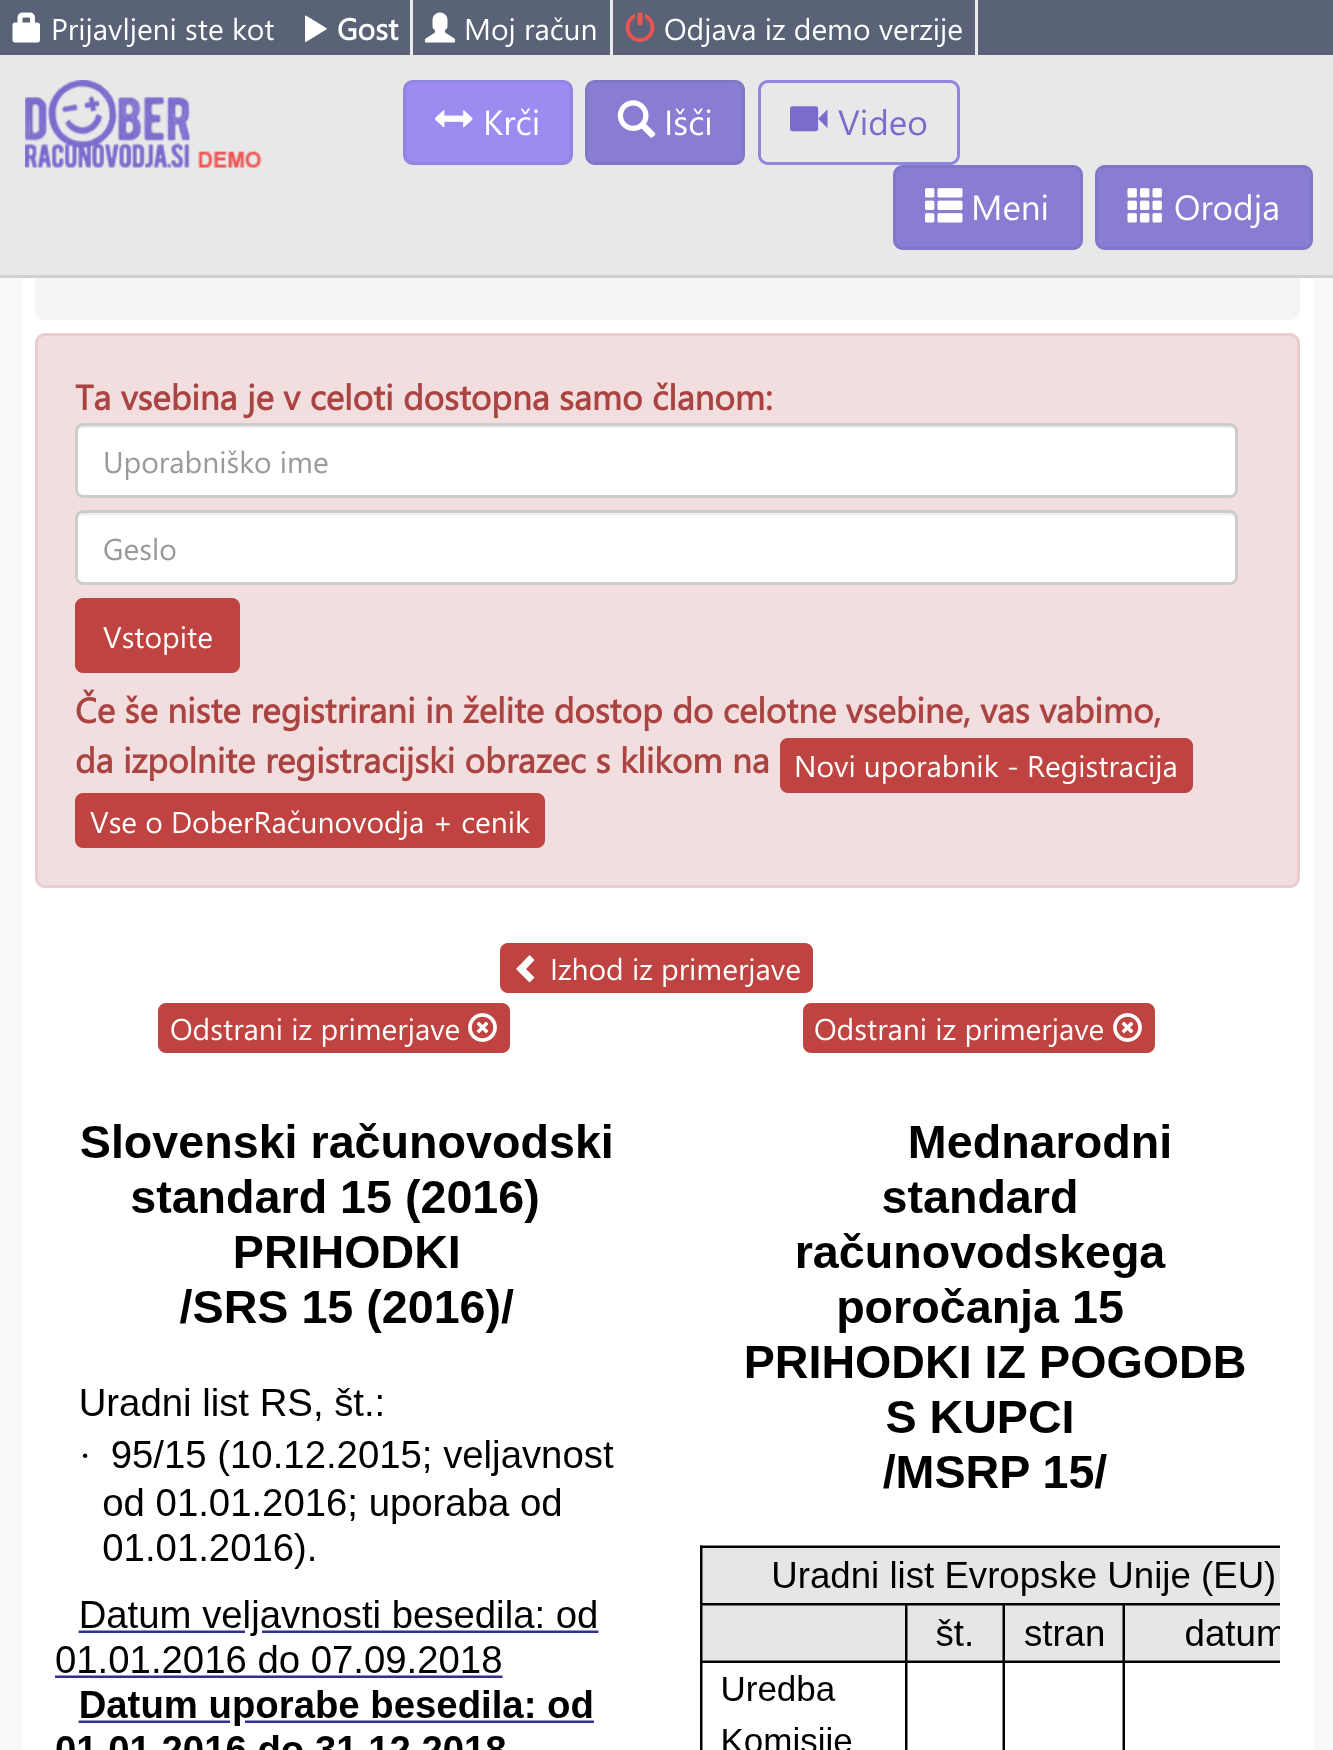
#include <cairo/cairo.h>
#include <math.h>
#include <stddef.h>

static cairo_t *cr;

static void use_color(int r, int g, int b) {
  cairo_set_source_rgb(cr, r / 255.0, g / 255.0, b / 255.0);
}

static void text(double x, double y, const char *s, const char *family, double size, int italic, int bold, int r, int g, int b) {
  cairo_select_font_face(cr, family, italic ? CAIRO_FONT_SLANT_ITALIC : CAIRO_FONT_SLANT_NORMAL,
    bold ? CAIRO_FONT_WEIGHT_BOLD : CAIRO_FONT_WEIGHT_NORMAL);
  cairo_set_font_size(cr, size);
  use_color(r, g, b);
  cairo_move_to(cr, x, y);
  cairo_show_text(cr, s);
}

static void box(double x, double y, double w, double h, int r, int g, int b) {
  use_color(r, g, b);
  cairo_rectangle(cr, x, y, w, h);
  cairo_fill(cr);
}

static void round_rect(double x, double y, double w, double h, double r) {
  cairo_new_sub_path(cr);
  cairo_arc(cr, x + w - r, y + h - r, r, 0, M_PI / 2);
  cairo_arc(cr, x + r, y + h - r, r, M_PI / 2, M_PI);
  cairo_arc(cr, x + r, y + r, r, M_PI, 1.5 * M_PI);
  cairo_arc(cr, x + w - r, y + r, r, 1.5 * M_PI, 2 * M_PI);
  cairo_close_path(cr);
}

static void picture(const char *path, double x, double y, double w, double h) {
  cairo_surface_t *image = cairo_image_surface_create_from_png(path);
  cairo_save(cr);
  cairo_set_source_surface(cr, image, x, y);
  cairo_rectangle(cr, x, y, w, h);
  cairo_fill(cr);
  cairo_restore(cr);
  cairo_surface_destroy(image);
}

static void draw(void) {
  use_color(249, 249, 249);
  cairo_paint(cr);
  box(0, 0, 1333, 55, 89, 98, 118);
  picture("img_01.png", 12, 12, 28, 31);
  box(410, 0, 3, 55, 235, 235, 235);
  picture("img_02.png", 305, 15, 22, 27);
  box(610, 0, 3, 55, 235, 235, 235);
  picture("img_03.png", 425, 12, 30, 31);
  box(975, 0, 3, 55, 235, 235, 235);
  picture("img_04.png", 625, 12, 30, 30);
  box(23, 278, 1290, 1472, 255, 255, 255);
  use_color(245, 245, 245);
  round_rect(35, 235, 1265, 85, 10);
  cairo_fill(cr);
  box(0, 55, 1333, 220, 232, 232, 232);
  box(0, 275, 1333, 3, 207, 207, 207);
  picture("img_05.png", 25, 80, 237, 88);
  use_color(158, 139, 242);
  round_rect(404.5, 81.5, 167, 82, 8.5);
  cairo_fill_preserve(cr);
  use_color(144, 133, 224);
  cairo_set_line_width(cr, 3);
  cairo_stroke(cr);
  picture("img_06.png", 435, 110, 38, 18);
  use_color(136, 125, 211);
  round_rect(586.5, 81.5, 157, 82, 8.5);
  cairo_fill_preserve(cr);
  use_color(128, 119, 198);
  cairo_stroke(cr);
  picture("img_07.png", 617, 100, 39, 38);
  round_rect(759.5, 81.5, 199, 82, 8.5);
  use_color(144, 133, 224);
  cairo_stroke(cr);
  picture("img_08.png", 790, 106, 38, 26);
  use_color(136, 125, 211);
  round_rect(894.5, 166.5, 187, 82, 8.5);
  cairo_fill_preserve(cr);
  use_color(128, 119, 198);
  cairo_stroke(cr);
  picture("img_09.png", 925, 188, 38, 35);
  use_color(136, 125, 211);
  round_rect(1096.5, 166.5, 215, 82, 8.5);
  cairo_fill_preserve(cr);
  use_color(128, 119, 198);
  cairo_stroke(cr);
  picture("img_10.png", 1127, 188, 35, 35);
  use_color(242, 222, 222);
  round_rect(36.5, 334.5, 1262, 552, 8.5);
  cairo_fill_preserve(cr);
  use_color(235, 204, 209);
  cairo_stroke(cr);
  use_color(255, 255, 255);
  round_rect(75, 423, 1163, 75, 8);
  cairo_fill(cr);
  use_color(236, 236, 236);
  cairo_new_path(cr);
  cairo_move_to(cr, 82, 428);
  cairo_line_to(cr, 1230, 428);
  cairo_curve_to(cr, 1233, 428, 1235, 430, 1235, 432);
  cairo_line_to(cr, 1235, 430);
  cairo_curve_to(cr, 1235, 427, 1233, 425, 1230, 425);
  cairo_line_to(cr, 83, 425);
  cairo_curve_to(cr, 80, 425, 78, 427, 78, 430);
  cairo_line_to(cr, 78, 432);
  cairo_curve_to(cr, 78, 430, 80, 428, 82, 428);
  cairo_close_path(cr);
  cairo_fill(cr);
  round_rect(76.5, 424.5, 1160, 72, 6.5);
  use_color(204, 204, 204);
  cairo_stroke(cr);
  use_color(255, 255, 255);
  round_rect(75, 510, 1163, 75, 8);
  cairo_fill(cr);
  use_color(236, 236, 236);
  cairo_new_path(cr);
  cairo_move_to(cr, 82, 515);
  cairo_line_to(cr, 1230, 515);
  cairo_curve_to(cr, 1233, 515, 1235, 517, 1235, 520);
  cairo_line_to(cr, 1235, 518);
  cairo_curve_to(cr, 1235, 515, 1233, 513, 1230, 513);
  cairo_line_to(cr, 83, 513);
  cairo_curve_to(cr, 80, 513, 78, 515, 78, 518);
  cairo_line_to(cr, 78, 520);
  cairo_curve_to(cr, 78, 517, 80, 515, 82, 515);
  cairo_close_path(cr);
  cairo_fill(cr);
  round_rect(76.5, 511.5, 1160, 72, 6.5);
  use_color(204, 204, 204);
  cairo_stroke(cr);
  use_color(191, 67, 65);
  round_rect(75, 598, 165, 75, 8);
  cairo_fill(cr);
  round_rect(780, 738, 413, 55, 8);
  cairo_fill(cr);
  round_rect(75, 793, 470, 55, 8);
  cairo_fill(cr);
  round_rect(500, 943, 313, 50, 8);
  cairo_fill(cr);
  use_color(255, 255, 255);
  cairo_new_path(cr);
  cairo_move_to(cr, 534.5, 960);
  cairo_line_to(cr, 526, 969);
  cairo_line_to(cr, 534.5, 977.5);
  cairo_line_to(cr, 529.5, 982.5);
  cairo_line_to(cr, 516, 969);
  cairo_line_to(cr, 529.5, 955);
  cairo_close_path(cr);
  cairo_fill(cr);
  use_color(191, 67, 65);
  round_rect(158, 1003, 352, 50, 8);
  cairo_fill(cr);
  picture("img_11.png", 468, 1013, 29, 29);
  picture("img_12.png", 55, 1123, 559, 627);
  round_rect(803, 1003, 352, 50, 8);
  cairo_fill(cr);
  picture("img_11.png", 1113, 1013, 29, 29);
  picture("img_13.png", 700, 1124, 580, 626);
  text(51, 40, "Prijavljeni ste kot", "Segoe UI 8", 30, 0, 0, 255, 255, 255);
  text(337, 40, "Gost", "Segoe UI 8", 30, 0, 1, 255, 255, 255);
  text(464, 40, "Moj račun", "Segoe UI 8", 30, 0, 0, 255, 255, 255);
  text(664, 40, "Odjava iz demo verzije", "Segoe UI 8", 30, 0, 0, 255, 255, 255);
  text(483, 135, "Krči", "Segoe UI 8", 35, 0, 0, 255, 255, 255);
  text(664, 135, "Išči", "Segoe UI 8", 35, 0, 0, 255, 255, 255);
  text(838, 135, "Video", "Segoe UI 8", 35, 0, 0, 124, 106, 205);
  text(971, 220, "Meni", "Segoe UI 8", 35, 0, 0, 255, 255, 255);
  text(1174, 220, "Orodja", "Segoe UI 8", 35, 0, 0, 255, 255, 255);
  text(75, 410, "Ta vsebina je v celoti dostopna samo članom:", "Segoe UI 8", 35, 0, 1, 169, 68, 66);
  text(103, 473, "Uporabniško ime", "Segoe UI 8", 30, 0, 0, 153, 153, 153);
  text(103, 560, "Geslo", "Segoe UI 8", 30, 0, 0, 153, 153, 153);
  text(103, 648, "Vstopite", "Segoe UI 8", 30, 0, 0, 255, 255, 255);
  text(75, 723, "Če še niste registrirani in želite dostop do celotne vsebine, vas vabimo,", "Segoe UI 8", 35, 0, 1, 169, 68, 66);
  text(75, 773, "da izpolnite registracijski obrazec s klikom na", "Segoe UI 8", 35, 0, 1, 169, 68, 66);
  text(794, 777, "Novi uporabnik - Registracija", "Segoe UI 8", 30, 0, 0, 255, 255, 255);
  text(90, 833, "Vse o DoberRačunovodja + cenik", "Segoe UI 8", 30, 0, 0, 255, 255, 255);
  text(550, 980, "Izhod iz primerjave", "Segoe UI 8", 30, 0, 0, 255, 255, 255);
  text(170, 1040, "Odstrani iz primerjave", "Segoe UI 8", 30, 0, 0, 255, 255, 255);
  text(814, 1040, "Odstrani iz primerjave", "Segoe UI 8", 30, 0, 0, 255, 255, 255);
}

int main(void) {
  cairo_surface_t *surface = cairo_image_surface_create(CAIRO_FORMAT_RGB24, 1333, 1750);
  cr = cairo_create(surface);
  cairo_font_options_t *options = cairo_font_options_create();
  cairo_font_options_set_hint_metrics(options, CAIRO_HINT_METRICS_OFF);
  cairo_font_options_set_hint_style(options, CAIRO_HINT_STYLE_NONE);
  cairo_set_font_options(cr, options);
  cairo_set_miter_limit(cr, 4);
  draw();
  cairo_surface_write_to_png(surface, "out.png");
  cairo_font_options_destroy(options);
  cairo_destroy(cr);
  cairo_surface_destroy(surface);
  return 0;
}
